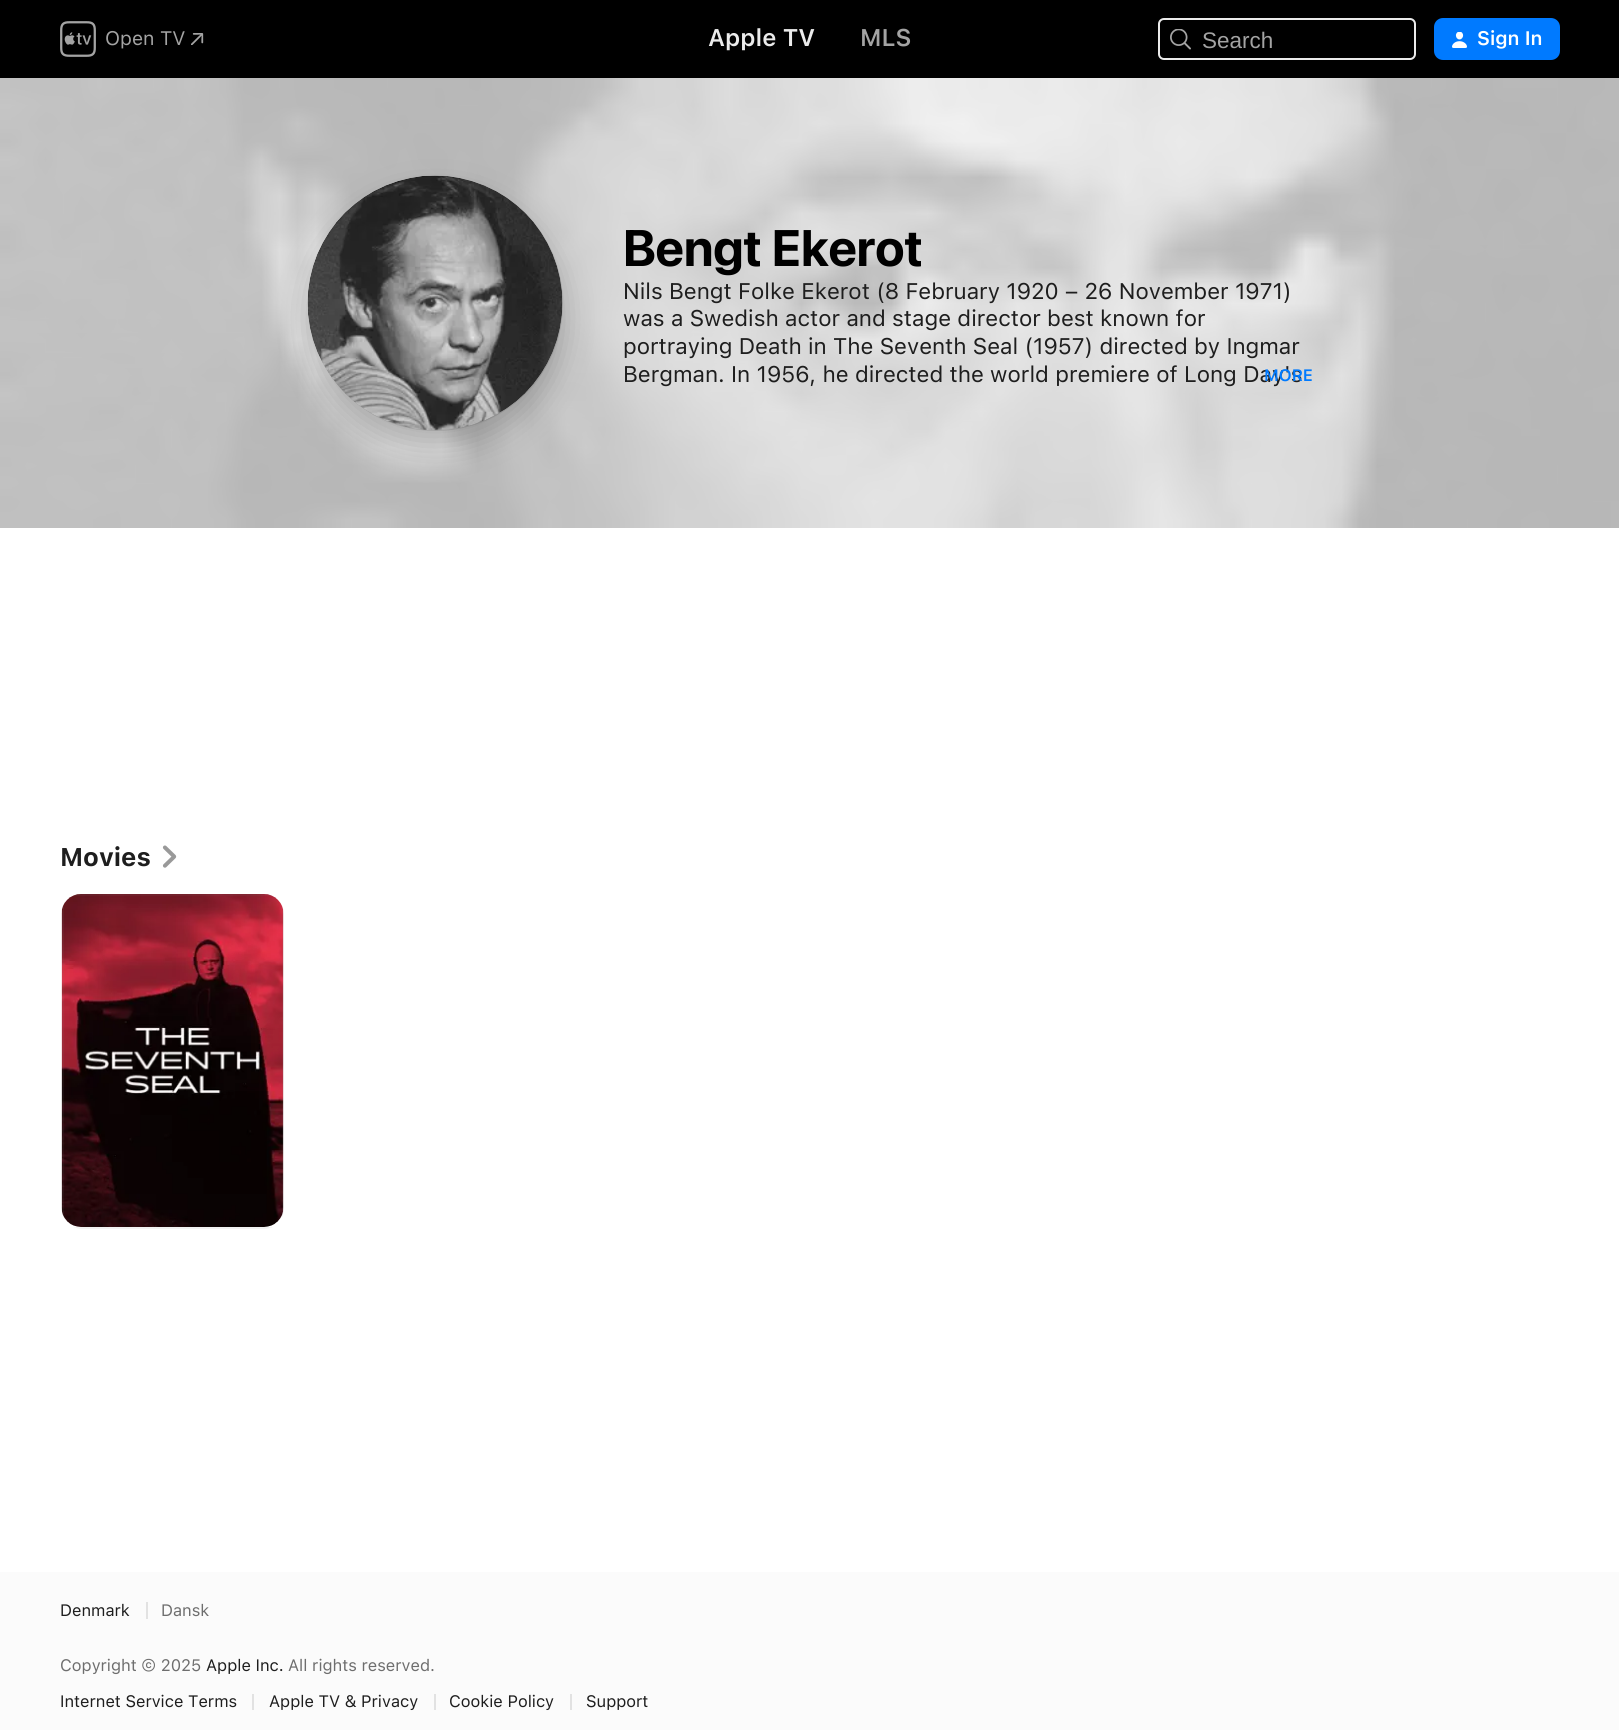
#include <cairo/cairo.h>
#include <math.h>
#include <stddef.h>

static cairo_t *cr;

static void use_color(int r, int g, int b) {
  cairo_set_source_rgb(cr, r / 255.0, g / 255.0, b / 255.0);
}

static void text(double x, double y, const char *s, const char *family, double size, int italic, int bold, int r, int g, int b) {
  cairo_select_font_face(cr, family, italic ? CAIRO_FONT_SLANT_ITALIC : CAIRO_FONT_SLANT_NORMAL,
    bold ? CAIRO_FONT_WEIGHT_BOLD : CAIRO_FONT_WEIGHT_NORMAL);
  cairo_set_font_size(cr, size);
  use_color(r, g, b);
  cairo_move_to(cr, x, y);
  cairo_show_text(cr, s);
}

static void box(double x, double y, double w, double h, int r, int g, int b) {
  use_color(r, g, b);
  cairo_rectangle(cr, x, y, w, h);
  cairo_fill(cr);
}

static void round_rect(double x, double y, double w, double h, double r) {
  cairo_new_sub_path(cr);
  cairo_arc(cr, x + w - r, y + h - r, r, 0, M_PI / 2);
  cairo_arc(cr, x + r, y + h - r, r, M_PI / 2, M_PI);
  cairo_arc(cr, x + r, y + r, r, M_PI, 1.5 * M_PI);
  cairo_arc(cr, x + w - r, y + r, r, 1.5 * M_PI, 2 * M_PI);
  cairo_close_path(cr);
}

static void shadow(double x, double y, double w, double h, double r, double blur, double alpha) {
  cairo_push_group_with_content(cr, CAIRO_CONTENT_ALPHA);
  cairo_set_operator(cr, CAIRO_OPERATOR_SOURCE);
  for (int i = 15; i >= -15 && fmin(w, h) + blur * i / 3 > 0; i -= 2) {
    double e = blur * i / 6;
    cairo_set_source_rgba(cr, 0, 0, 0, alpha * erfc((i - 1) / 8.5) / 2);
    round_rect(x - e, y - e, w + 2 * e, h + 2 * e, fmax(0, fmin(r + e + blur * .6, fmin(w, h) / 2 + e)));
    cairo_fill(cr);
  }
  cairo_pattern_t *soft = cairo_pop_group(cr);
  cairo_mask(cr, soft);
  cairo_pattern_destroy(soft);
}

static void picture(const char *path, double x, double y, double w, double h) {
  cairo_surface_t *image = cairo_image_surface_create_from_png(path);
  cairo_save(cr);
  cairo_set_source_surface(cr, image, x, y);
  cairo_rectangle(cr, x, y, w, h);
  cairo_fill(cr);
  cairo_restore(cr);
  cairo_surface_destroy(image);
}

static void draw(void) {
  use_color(255, 255, 255);
  cairo_paint(cr);
  box(0, 0, 1619, 78, 0, 0, 0);
  picture("img_01.png", 60, 21, 36, 36);
  picture("img_02.png", 191, 33, 13, 12);
  round_rect(1159, 19, 256, 40, 5);
  use_color(235, 235, 235);
  cairo_stroke(cr);
  picture("img_03.png", 1170, 29, 21, 21);
  use_color(0, 122, 255);
  round_rect(1434, 18, 126, 42, 9);
  cairo_fill(cr);
  picture("img_04.png", 1452, 32, 15, 16);
  picture("img_05.png", 0, 78, 1619, 450);
  use_color(0, 0, 0);
  shadow(308, 191, 255, 255, 127.5, 15, 0.2);
  cairo_arc(cr, 435.5, 303.5, 126.5, 0, 2 * M_PI);
  cairo_set_source_rgba(cr, 0, 0, 0, 0.08);
  cairo_stroke(cr);
  picture("img_06.png", 307, 175, 256, 256);
  cairo_set_source_rgba(cr, 0.502, 0.502, 0.502, 0.1);
  cairo_new_path(cr);
  cairo_move_to(cr, 436, 176);
  cairo_curve_to(cr, 506, 176, 563, 233, 563, 304);
  cairo_curve_to(cr, 563, 374, 506, 431, 436, 431);
  cairo_curve_to(cr, 365, 431, 308, 374, 308, 304);
  cairo_curve_to(cr, 308, 233, 365, 176, 436, 176);
  cairo_close_path(cr);
  cairo_fill(cr);
  picture("img_07.png", 162, 845, 15, 23);
  picture("img_08.png", 61, 894, 223, 333);
  cairo_set_fill_rule(cr, CAIRO_FILL_RULE_EVEN_ODD);
  cairo_new_path(cr);
  cairo_move_to(cr, 62, 914);
  cairo_line_to(cr, 62, 1209);
  cairo_curve_to(cr, 62, 1212, 63, 1215, 64, 1218);
  cairo_line_to(cr, 64, 905);
  cairo_curve_to(cr, 63, 908, 62, 911, 62, 914);
  cairo_close_path(cr);
  cairo_move_to(cr, 82, 894);
  cairo_curve_to(cr, 79, 894, 76, 895, 73, 896);
  cairo_line_to(cr, 273, 896);
  cairo_curve_to(cr, 270, 895, 267, 894, 264, 894);
  cairo_close_path(cr);
  cairo_move_to(cr, 284, 914);
  cairo_curve_to(cr, 284, 911, 283, 908, 282, 905);
  cairo_line_to(cr, 282, 1218);
  cairo_curve_to(cr, 283, 1215, 284, 1212, 284, 1209);
  cairo_close_path(cr);
  cairo_move_to(cr, 264, 1229);
  cairo_curve_to(cr, 267, 1229, 270, 1228, 273, 1227);
  cairo_line_to(cr, 73, 1227);
  cairo_curve_to(cr, 76, 1228, 79, 1229, 82, 1229);
  cairo_close_path(cr);
  cairo_fill(cr);
  box(0, 1572, 1619, 158, 251, 251, 251);
  box(146, 1602, 2, 17, 226, 226, 226);
  box(252, 1694, 2, 16, 226, 226, 226);
  box(434, 1694, 2, 16, 226, 226, 226);
  box(570, 1694, 2, 16, 226, 226, 226);
  text(105, 45, "Open TV", "SF", 19.5, 0, 0, 163, 163, 163);
  text(708, 46, "Apple TV", "SF SemiBold", 24, 0, 0, 235, 235, 235);
  text(860, 46, "MLS", "SF SemiBold", 24, 0, 0, 163, 163, 163);
  text(1202, 48, "Search", "Liberation Sans", 22.5, 0, 0, 163, 163, 163);
  text(1477, 45, "Sign In", "SF SemiBold", 19.5, 0, 0, 255, 255, 255);
  text(623, 266, "Bengt Ekerot", "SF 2", 51, 0, 1, 0, 0, 0);
  text(623, 299, "Nils Bengt Folke Ekerot (8 February 1920 – 26 November 1971)", "SF", 22.5, 0, 0, 30, 30, 30);
  text(623, 326, "was a Swedish actor and stage director best known for", "SF", 22.5, 0, 0, 30, 30, 30);
  text(623, 354, "portraying Death in The Seventh Seal (1957) directed by Ingmar", "SF", 22.5, 0, 0, 30, 30, 30);
  text(623, 382, "Bergman. In 1956, he directed the world premiere of Long Day's", "SF", 22.5, 0, 0, 30, 30, 30);
  text(1264, 381, "MORE", "SF SemiBold", 16.5, 0, 0, 0, 122, 255);
  text(60, 866, "Movies", "SF", 25.5, 0, 1, 30, 30, 30);
  text(60, 1616, "Denmark", "SF", 16.5, 0, 0, 30, 30, 30);
  text(161, 1616, "Dansk", "SF", 16.5, 0, 0, 110, 110, 110);
  text(60, 1671, "Copyright © 2025", "SF", 16.5, 0, 0, 110, 110, 110);
  text(206, 1671, "Apple Inc.", "SF", 16.5, 0, 0, 30, 30, 30);
  text(288, 1671, "All rights reserved.", "SF", 16.5, 0, 0, 110, 110, 110);
  text(60, 1707, "Internet Service Terms", "SF", 16.5, 0, 0, 30, 30, 30);
  text(269, 1707, "Apple TV & Privacy", "SF", 16.5, 0, 0, 30, 30, 30);
  text(449, 1707, "Cookie Policy", "SF", 16.5, 0, 0, 30, 30, 30);
  text(586, 1707, "Support", "SF", 16.5, 0, 0, 30, 30, 30);
}

int main(void) {
  cairo_surface_t *surface = cairo_image_surface_create(CAIRO_FORMAT_RGB24, 1619, 1730);
  cr = cairo_create(surface);
  cairo_font_options_t *options = cairo_font_options_create();
  cairo_font_options_set_hint_metrics(options, CAIRO_HINT_METRICS_OFF);
  cairo_font_options_set_hint_style(options, CAIRO_HINT_STYLE_NONE);
  cairo_set_font_options(cr, options);
  cairo_set_miter_limit(cr, 4);
  draw();
  cairo_surface_write_to_png(surface, "out.png");
  cairo_font_options_destroy(options);
  cairo_destroy(cr);
  cairo_surface_destroy(surface);
  return 0;
}
